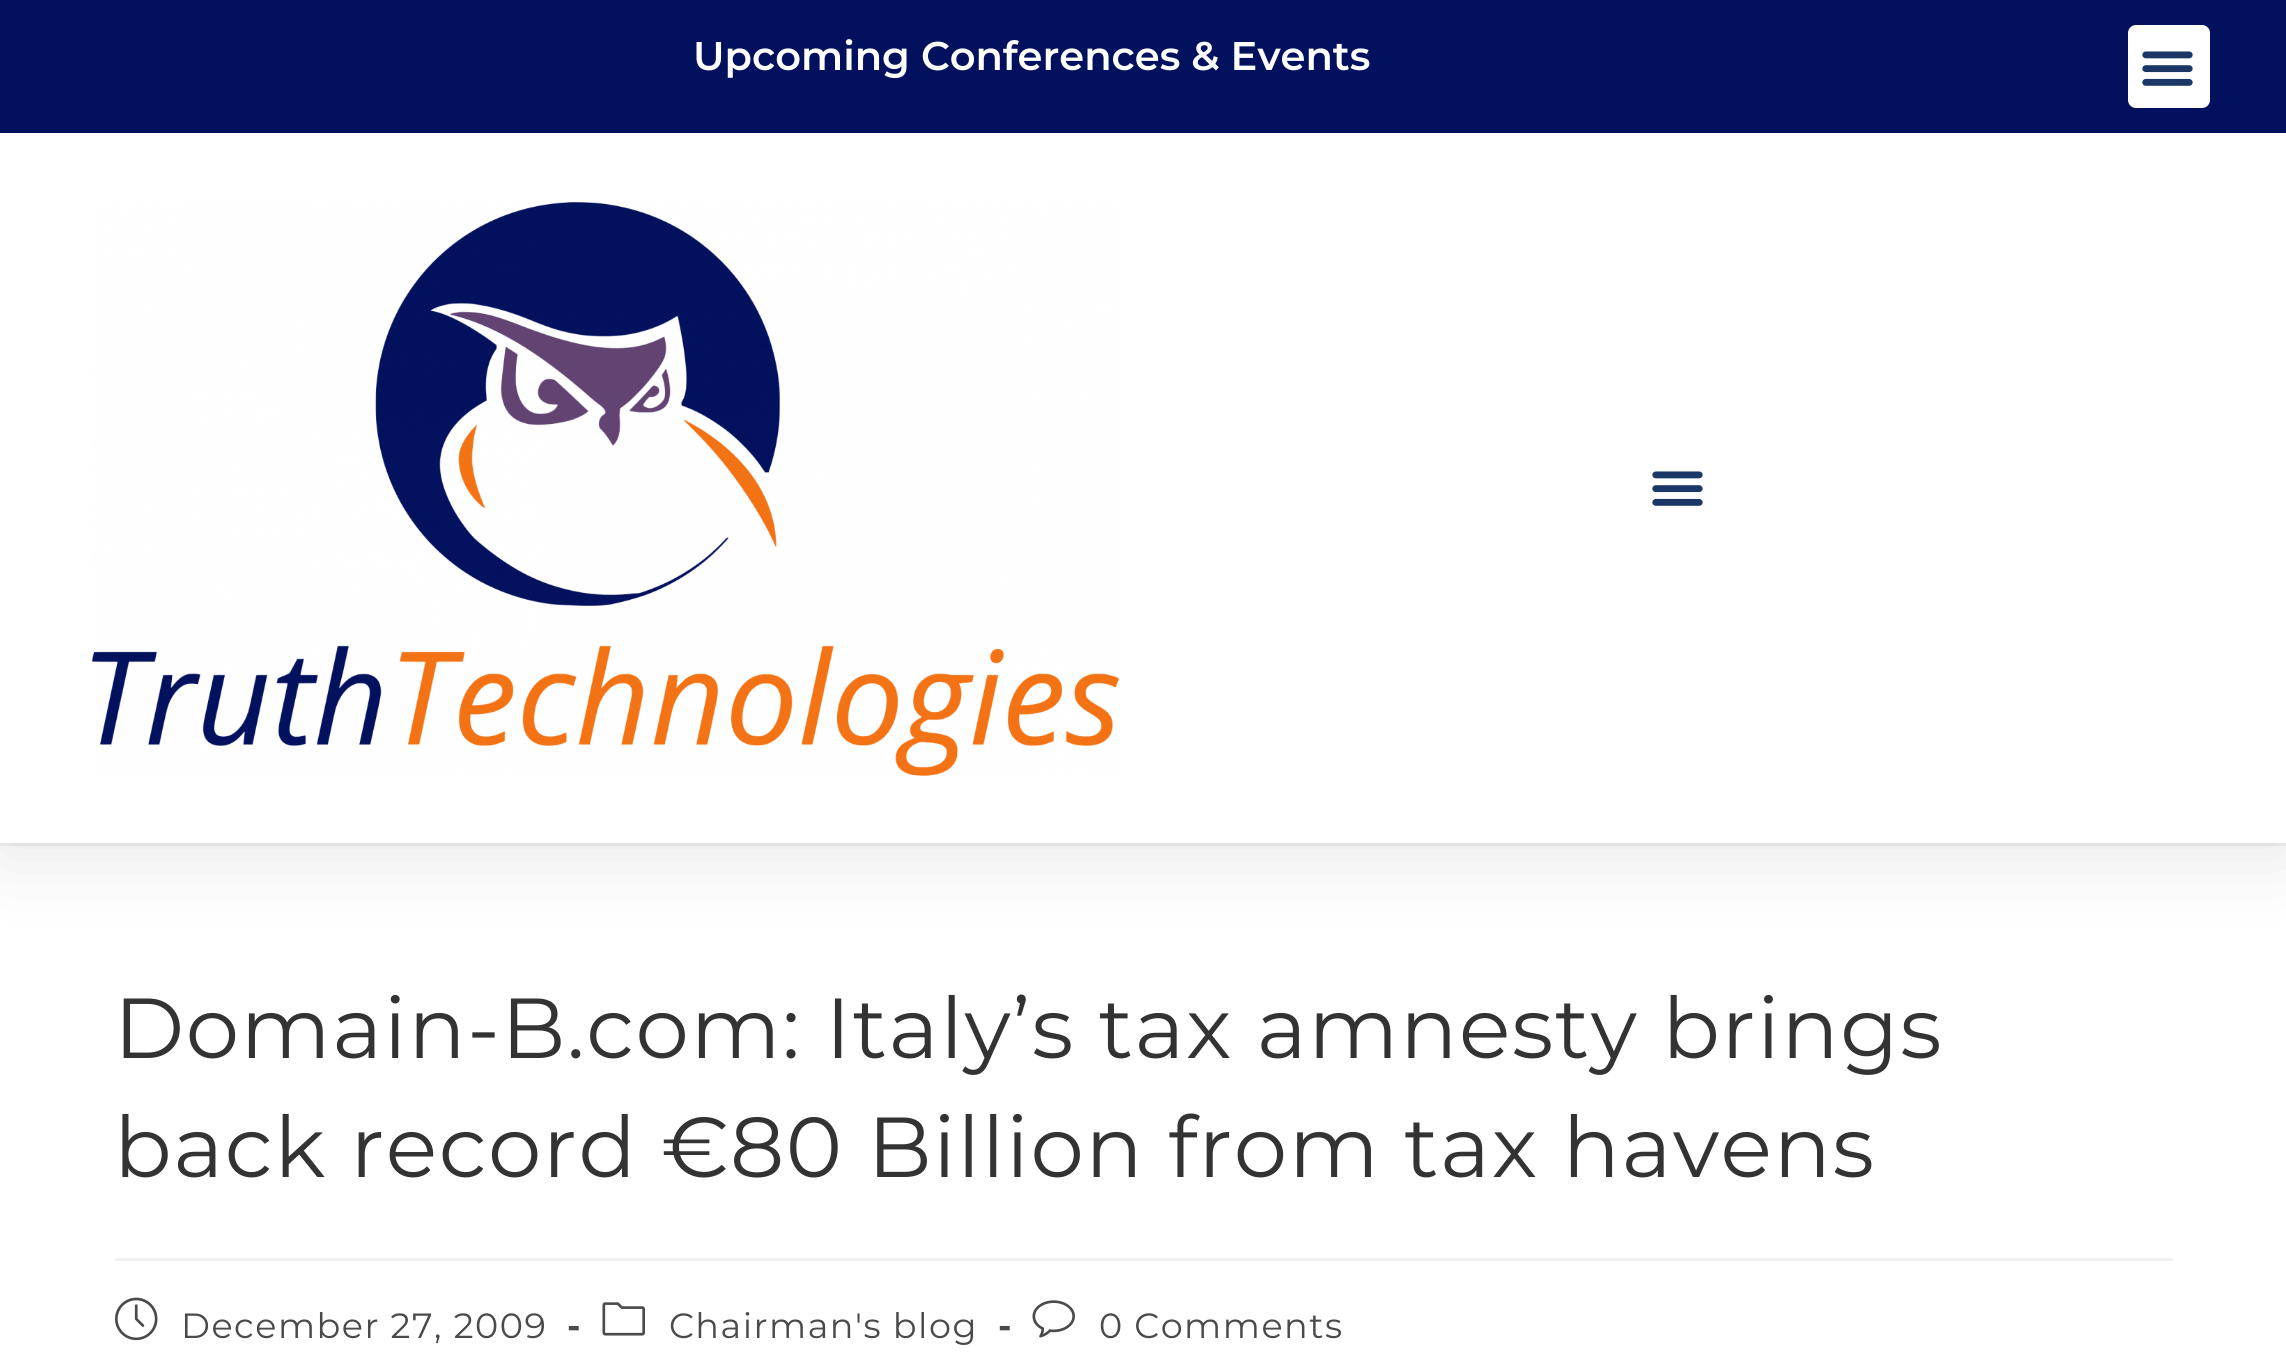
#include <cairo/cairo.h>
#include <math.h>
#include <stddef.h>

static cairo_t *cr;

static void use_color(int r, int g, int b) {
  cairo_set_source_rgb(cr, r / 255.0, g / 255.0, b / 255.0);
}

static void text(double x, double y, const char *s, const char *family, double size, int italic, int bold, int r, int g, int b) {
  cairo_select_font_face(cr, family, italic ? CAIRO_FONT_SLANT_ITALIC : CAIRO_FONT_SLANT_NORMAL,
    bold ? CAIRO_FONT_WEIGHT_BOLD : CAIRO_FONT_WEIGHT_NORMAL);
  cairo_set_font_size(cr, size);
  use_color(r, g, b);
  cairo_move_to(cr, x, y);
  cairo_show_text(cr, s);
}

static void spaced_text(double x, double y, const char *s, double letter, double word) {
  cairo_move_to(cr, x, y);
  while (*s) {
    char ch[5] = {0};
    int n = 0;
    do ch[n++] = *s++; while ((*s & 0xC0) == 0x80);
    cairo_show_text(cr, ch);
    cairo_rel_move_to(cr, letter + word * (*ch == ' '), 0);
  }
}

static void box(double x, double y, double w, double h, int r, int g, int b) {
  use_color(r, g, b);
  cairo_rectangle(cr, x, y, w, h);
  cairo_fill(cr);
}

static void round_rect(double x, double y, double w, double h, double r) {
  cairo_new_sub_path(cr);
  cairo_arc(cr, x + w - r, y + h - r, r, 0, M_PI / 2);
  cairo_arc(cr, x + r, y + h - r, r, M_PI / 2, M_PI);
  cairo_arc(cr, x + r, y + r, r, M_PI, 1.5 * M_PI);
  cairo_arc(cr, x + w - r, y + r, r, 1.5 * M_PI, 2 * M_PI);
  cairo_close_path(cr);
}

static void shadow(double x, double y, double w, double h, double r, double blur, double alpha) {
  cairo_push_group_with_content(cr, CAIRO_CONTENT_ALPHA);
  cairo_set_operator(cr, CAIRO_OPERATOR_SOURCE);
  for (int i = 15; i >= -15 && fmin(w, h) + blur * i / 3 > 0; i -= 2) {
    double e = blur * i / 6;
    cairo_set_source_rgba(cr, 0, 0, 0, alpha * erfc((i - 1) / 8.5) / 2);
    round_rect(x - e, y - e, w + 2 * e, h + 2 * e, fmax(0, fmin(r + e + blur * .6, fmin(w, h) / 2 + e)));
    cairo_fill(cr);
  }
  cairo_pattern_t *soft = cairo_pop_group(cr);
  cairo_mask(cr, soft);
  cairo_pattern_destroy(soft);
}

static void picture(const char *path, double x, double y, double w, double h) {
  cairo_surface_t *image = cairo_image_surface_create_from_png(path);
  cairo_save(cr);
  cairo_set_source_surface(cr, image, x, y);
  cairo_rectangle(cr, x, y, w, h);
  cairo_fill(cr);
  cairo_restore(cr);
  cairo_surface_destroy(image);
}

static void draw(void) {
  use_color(255, 255, 255);
  cairo_paint(cr);
  box(0, 843, 2286, 3, 241, 241, 241);
  use_color(0, 0, 0);
  shadow(0, 145, 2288, 710, 0, 37.5, 0.1);
  box(0, 133, 2286, 710, 255, 255, 255);
  picture("img_01.png", 91, 202, 1029, 574);
  picture("img_02.png", 1652, 471, 51, 35);
  box(0, 0, 2286, 133, 2, 17, 94);
  use_color(255, 255, 255);
  round_rect(2128, 25, 82, 83, 8);
  cairo_fill(cr);
  picture("img_02.png", 2142, 51, 51, 35);
  box(115, 1258, 2058, 3, 241, 241, 241);
  picture("img_03.png", 115, 1297, 43, 44);
  picture("img_04.png", 602, 1302, 43, 34);
  picture("img_05.png", 1032, 1300, 43, 38);
  text(693, 70, "Upcoming Conferences & Events", "Montserrat SemiBold", 40, 0, 0, 255, 255, 255);
  cairo_select_font_face(cr, "Montserrat", CAIRO_FONT_SLANT_NORMAL, CAIRO_FONT_WEIGHT_NORMAL);
  cairo_set_font_size(cr, 85);
  use_color(51, 51, 51);
  spaced_text(114, 1058, "Domain-B.com: Italy’s tax amnesty brings", 1.5, 0);
  spaced_text(114, 1177, "back record €80 Billion from tax havens", 1.5, 0);
  cairo_set_font_size(cr, 35);
  use_color(74, 74, 74);
  spaced_text(181, 1338, "December 27, 2009", 1.5, 0);
  cairo_select_font_face(cr, "Montserrat", CAIRO_FONT_SLANT_NORMAL, CAIRO_FONT_WEIGHT_BOLD);
  spaced_text(567, 1338, "-", 1.5, 0);
  cairo_select_font_face(cr, "Montserrat", CAIRO_FONT_SLANT_NORMAL, CAIRO_FONT_WEIGHT_NORMAL);
  spaced_text(669, 1338, "Chairman's blog", 1.5, 0);
  cairo_select_font_face(cr, "Montserrat", CAIRO_FONT_SLANT_NORMAL, CAIRO_FONT_WEIGHT_BOLD);
  spaced_text(998, 1338, "-", 1.5, 0);
  cairo_select_font_face(cr, "Montserrat", CAIRO_FONT_SLANT_NORMAL, CAIRO_FONT_WEIGHT_NORMAL);
  spaced_text(1099, 1338, "0 Comments", 1.5, 0);
}

int main(void) {
  cairo_surface_t *surface = cairo_image_surface_create(CAIRO_FORMAT_RGB24, 2286, 1353);
  cr = cairo_create(surface);
  cairo_font_options_t *options = cairo_font_options_create();
  cairo_font_options_set_hint_metrics(options, CAIRO_HINT_METRICS_OFF);
  cairo_font_options_set_hint_style(options, CAIRO_HINT_STYLE_NONE);
  cairo_set_font_options(cr, options);
  cairo_set_miter_limit(cr, 4);
  draw();
  cairo_surface_write_to_png(surface, "out.png");
  cairo_font_options_destroy(options);
  cairo_destroy(cr);
  cairo_surface_destroy(surface);
  return 0;
}
